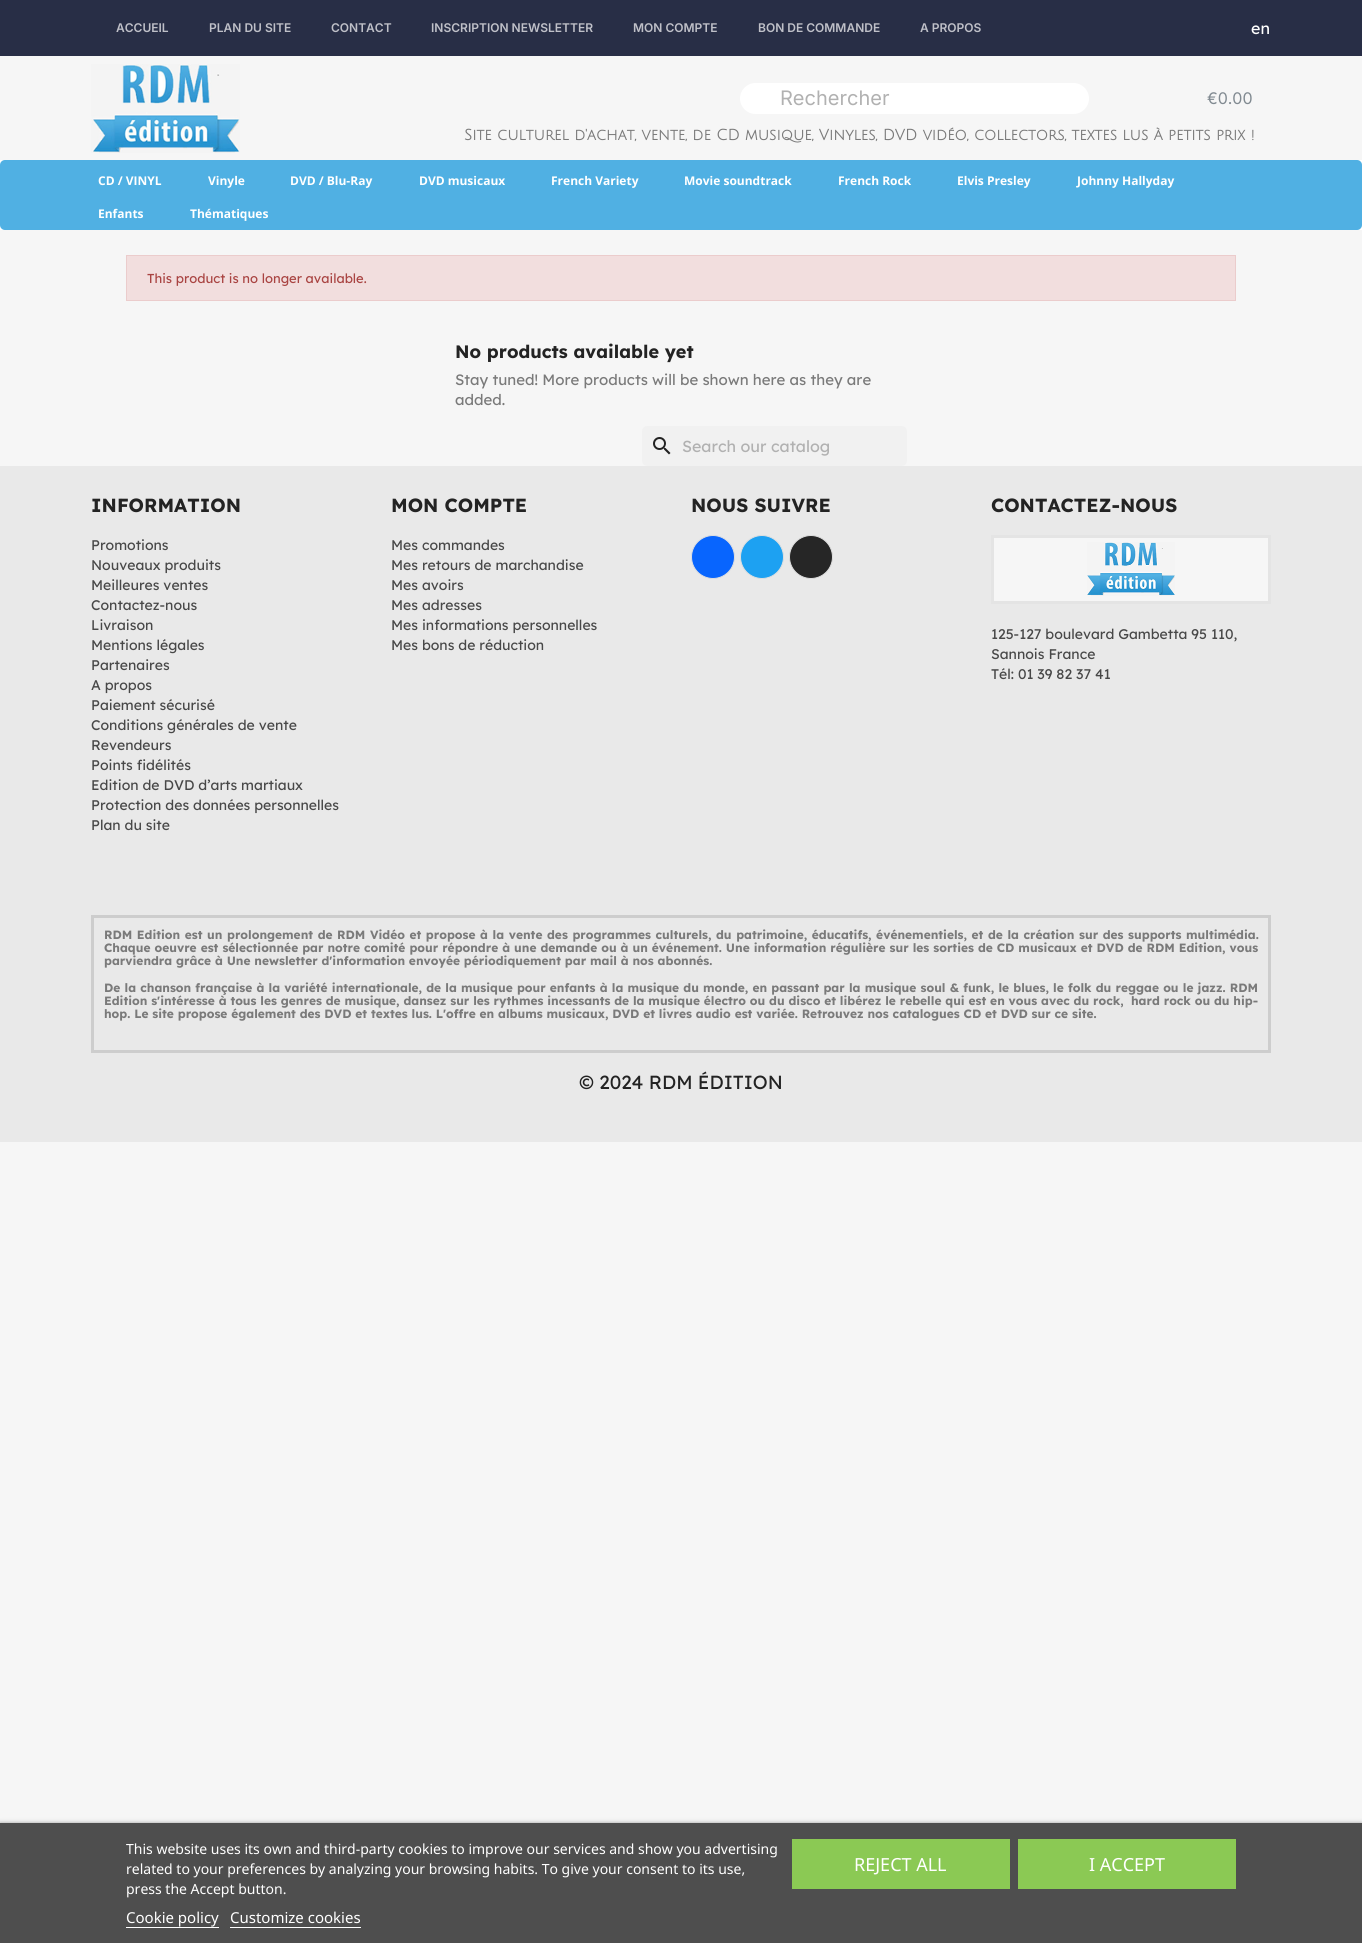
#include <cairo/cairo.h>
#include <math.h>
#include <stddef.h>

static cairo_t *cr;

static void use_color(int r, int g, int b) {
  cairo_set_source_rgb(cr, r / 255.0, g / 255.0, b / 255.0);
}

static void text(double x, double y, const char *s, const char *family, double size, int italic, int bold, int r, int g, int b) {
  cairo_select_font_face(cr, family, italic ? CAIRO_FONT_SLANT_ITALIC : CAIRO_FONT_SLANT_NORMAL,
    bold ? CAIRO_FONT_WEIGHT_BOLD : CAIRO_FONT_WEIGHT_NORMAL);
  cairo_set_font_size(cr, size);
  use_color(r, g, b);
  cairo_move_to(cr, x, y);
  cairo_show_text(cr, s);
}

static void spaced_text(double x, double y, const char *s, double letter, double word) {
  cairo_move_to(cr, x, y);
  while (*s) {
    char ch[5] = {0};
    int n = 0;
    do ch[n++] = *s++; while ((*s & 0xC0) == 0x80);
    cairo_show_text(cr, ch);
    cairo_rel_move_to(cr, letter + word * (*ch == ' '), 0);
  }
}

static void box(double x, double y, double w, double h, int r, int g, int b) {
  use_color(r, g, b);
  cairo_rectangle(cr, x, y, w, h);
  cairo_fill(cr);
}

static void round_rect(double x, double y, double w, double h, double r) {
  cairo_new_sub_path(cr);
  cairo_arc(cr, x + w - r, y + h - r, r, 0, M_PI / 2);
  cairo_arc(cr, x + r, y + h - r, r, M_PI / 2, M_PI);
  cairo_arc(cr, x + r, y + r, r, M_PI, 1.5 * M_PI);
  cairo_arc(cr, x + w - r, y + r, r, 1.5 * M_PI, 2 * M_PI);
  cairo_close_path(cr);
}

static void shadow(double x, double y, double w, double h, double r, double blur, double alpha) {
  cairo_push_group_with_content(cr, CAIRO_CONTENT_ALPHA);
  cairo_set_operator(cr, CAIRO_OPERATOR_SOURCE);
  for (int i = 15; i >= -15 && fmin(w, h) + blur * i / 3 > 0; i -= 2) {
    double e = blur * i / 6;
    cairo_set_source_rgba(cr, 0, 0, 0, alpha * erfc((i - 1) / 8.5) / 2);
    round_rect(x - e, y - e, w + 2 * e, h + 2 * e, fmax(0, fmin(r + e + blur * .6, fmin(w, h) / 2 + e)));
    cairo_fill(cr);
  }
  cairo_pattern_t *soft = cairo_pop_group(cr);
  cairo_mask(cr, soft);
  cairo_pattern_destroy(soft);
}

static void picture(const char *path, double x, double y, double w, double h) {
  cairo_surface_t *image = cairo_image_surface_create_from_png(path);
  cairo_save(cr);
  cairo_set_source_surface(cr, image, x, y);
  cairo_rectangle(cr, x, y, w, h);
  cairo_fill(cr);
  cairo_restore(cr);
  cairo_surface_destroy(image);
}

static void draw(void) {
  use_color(246, 246, 246);
  cairo_paint(cr);
  box(0, 160, 1362, 70, 255, 255, 255);
  box(0, 0, 1362, 56, 40, 46, 70);
  picture("img_01.png", 91, 64, 149, 89);
  use_color(255, 255, 255);
  round_rect(740, 83, 349, 31, 15.5);
  cairo_fill(cr);
  use_color(80, 176, 227);
  round_rect(0, 160, 1362, 70, 5);
  cairo_fill(cr);
  use_color(242, 222, 222);
  cairo_rectangle(cr, 126.5, 255.5, 1109, 45);
  cairo_fill_preserve(cr);
  use_color(235, 204, 204);
  cairo_set_line_width(cr, 1);
  cairo_stroke(cr);
  use_color(241, 241, 241);
  round_rect(642, 426, 265, 40, 5);
  cairo_fill(cr);
  picture("img_02.png", 653, 437, 18, 18);
  box(0, 466, 1362, 676, 233, 233, 233);
  use_color(8, 101, 254);
  cairo_arc(cr, 713, 557, 21.5, 0, 2 * M_PI);
  cairo_fill_preserve(cr);
  use_color(223, 223, 223);
  cairo_stroke(cr);
  use_color(29, 161, 242);
  cairo_arc(cr, 762, 557, 21.5, 0, 2 * M_PI);
  cairo_fill_preserve(cr);
  use_color(223, 223, 223);
  cairo_stroke(cr);
  use_color(38, 38, 38);
  cairo_arc(cr, 811, 557, 21.5, 0, 2 * M_PI);
  cairo_fill_preserve(cr);
  use_color(223, 223, 223);
  cairo_stroke(cr);
  box(994, 538, 274, 63, 246, 246, 246);
  cairo_new_path(cr);
  cairo_move_to(cr, 992.5, 536.5);
  cairo_line_to(cr, 1269.5, 536.5);
  cairo_line_to(cr, 1269.5, 602.5);
  cairo_line_to(cr, 992.5, 602.5);
  cairo_close_path(cr);
  use_color(228, 228, 228);
  cairo_set_line_width(cr, 3);
  cairo_stroke(cr);
  picture("img_03.png", 1087, 542, 88, 54);
  cairo_rectangle(cr, 92.5, 916.5, 1177, 135);
  use_color(205, 205, 205);
  cairo_stroke(cr);
  use_color(112, 112, 112);
  shadow(0, 1824, 1362, 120, 0, 2.5, 1);
  box(0, 1823, 1362, 120, 78, 78, 78);
  box(126, 1927, 93, 1, 255, 255, 255);
  box(230, 1927, 131, 1, 255, 255, 255);
  box(792, 1839, 218, 50, 139, 201, 84);
  box(1018, 1839, 218, 50, 139, 201, 84);
  text(116, 32, "ACCUEIL", "Inter SemiBold", 12, 0, 0, 191, 192, 200);
  text(209, 32, "PLAN DU SITE", "Inter SemiBold", 12, 0, 0, 191, 192, 200);
  text(331, 32, "CONTACT", "Inter SemiBold", 12, 0, 0, 191, 192, 200);
  text(431, 32, "INSCRIPTION NEWSLETTER", "Inter SemiBold", 12, 0, 0, 191, 192, 200);
  text(633, 32, "MON COMPTE", "Inter SemiBold", 12, 0, 0, 191, 192, 200);
  text(758, 32, "BON DE COMMANDE", "Inter SemiBold", 12, 0, 0, 191, 192, 200);
  text(920, 32, "A PROPOS", "Inter SemiBold", 12, 0, 0, 191, 192, 200);
  text(1251, 34, "en", "Lexend", 16, 0, 0, 255, 255, 255);
  text(780, 105, "Rechercher", "Inter", 20, 0, 0, 177, 177, 177);
  text(1207, 104, "€0.00", "Inter", 16, 0, 0, 129, 138, 145);
  text(464, 140, "Site culturel d'achat, vente, de CD musique, Vinyles, DVD vidéo, collectors, textes lus à petits prix !", "Julius Sans One", 15, 0, 1, 122, 122, 122);
  text(98, 185, "CD / VINYL", "Open Sans", 12, 0, 1, 255, 255, 255);
  text(208, 185, "Vinyle", "Open Sans", 12, 0, 1, 255, 255, 255);
  text(290, 185, "DVD / Blu-Ray", "Open Sans", 12, 0, 1, 255, 255, 255);
  text(419, 185, "DVD musicaux", "Open Sans", 12, 0, 1, 255, 255, 255);
  text(551, 185, "French Variety", "Open Sans", 12, 0, 1, 255, 255, 255);
  text(684, 185, "Movie soundtrack", "Open Sans", 12, 0, 1, 255, 255, 255);
  text(838, 185, "French Rock", "Open Sans", 12, 0, 1, 255, 255, 255);
  text(957, 185, "Elvis Presley", "Open Sans", 12, 0, 1, 255, 255, 255);
  text(1077, 185, "Johnny Hallyday", "Open Sans", 12, 0, 1, 255, 255, 255);
  text(98, 218, "Enfants", "Open Sans", 12, 0, 1, 255, 255, 255);
  text(190, 218, "Thématiques", "Open Sans", 12, 0, 1, 255, 255, 255);
  text(147, 283, "This product is no longer available.", "Lexend", 13, 0, 0, 169, 68, 66);
  text(455, 358, "No products available yet", "Lexend", 18, 0, 1, 35, 35, 35);
  text(455, 385, "Stay tuned! More products will be shown here as they are", "Lexend", 15, 0, 0, 122, 122, 122);
  text(455, 405, "added.", "Lexend", 15, 0, 0, 122, 122, 122);
  text(682, 452, "Search our catalog", "Lexend", 16, 0, 0, 177, 177, 177);
  text(91, 512, "INFORMATION", "Lexend", 19, 0, 1, 35, 35, 35);
  text(91, 550, "Promotions", "Lexend", 14, 0, 0, 72, 72, 72);
  text(91, 570, "Nouveaux produits", "Lexend", 14, 0, 0, 72, 72, 72);
  text(91, 590, "Meilleures ventes", "Lexend", 14, 0, 0, 72, 72, 72);
  text(91, 610, "Contactez-nous", "Lexend", 14, 0, 0, 72, 72, 72);
  text(91, 630, "Livraison", "Lexend", 14, 0, 0, 72, 72, 72);
  text(91, 650, "Mentions légales", "Lexend", 14, 0, 0, 72, 72, 72);
  text(91, 670, "Partenaires", "Lexend", 14, 0, 0, 72, 72, 72);
  text(91, 690, "A propos", "Lexend", 14, 0, 0, 72, 72, 72);
  text(91, 710, "Paiement sécurisé", "Lexend", 14, 0, 0, 72, 72, 72);
  text(91, 730, "Conditions générales de vente", "Lexend", 14, 0, 0, 72, 72, 72);
  text(91, 750, "Revendeurs", "Lexend", 14, 0, 0, 72, 72, 72);
  text(91, 770, "Points fidélités", "Lexend", 14, 0, 0, 72, 72, 72);
  text(91, 790, "Edition de DVD d’arts martiaux", "Lexend", 14, 0, 0, 72, 72, 72);
  text(91, 810, "Protection des données personnelles", "Lexend", 14, 0, 0, 72, 72, 72);
  text(91, 830, "Plan du site", "Lexend", 14, 0, 0, 72, 72, 72);
  text(391, 512, "MON COMPTE", "Lexend", 19, 0, 1, 35, 35, 35);
  text(391, 550, "Mes commandes", "Lexend", 14, 0, 0, 72, 72, 72);
  text(391, 570, "Mes retours de marchandise", "Lexend", 14, 0, 0, 72, 72, 72);
  text(391, 590, "Mes avoirs", "Lexend", 14, 0, 0, 72, 72, 72);
  text(391, 610, "Mes adresses", "Lexend", 14, 0, 0, 72, 72, 72);
  text(391, 630, "Mes informations personnelles", "Lexend", 14, 0, 0, 72, 72, 72);
  text(391, 650, "Mes bons de réduction", "Lexend", 14, 0, 0, 72, 72, 72);
  text(691, 512, "NOUS SUIVRE", "Lexend", 19, 0, 1, 35, 35, 35);
  text(991, 512, "CONTACTEZ-NOUS", "Lexend", 19, 0, 1, 35, 35, 35);
  text(991, 639, "125-127 boulevard Gambetta 95 110,", "Lexend", 14, 0, 0, 72, 72, 72);
  text(991, 659, "Sannois France", "Lexend", 14, 0, 0, 72, 72, 72);
  text(991, 679, "Tél: 01 39 82 37 41", "Lexend", 14, 0, 0, 72, 72, 72);
  cairo_select_font_face(cr, "Lexend", CAIRO_FONT_SLANT_NORMAL, CAIRO_FONT_WEIGHT_BOLD);
  cairo_set_font_size(cr, 12);
  use_color(122, 122, 122);
  spaced_text(104, 939, "RDM Edition est un prolongement de RDM Vidéo et propose à la vente des programmes culturels, du patrimoine, éducatifs, événementiels, et de la création sur des supports multimédia.", 0, 0.75);
  spaced_text(104, 952, "Chaque oeuvre est sélectionnée par notre comité pour répondre à une demande ou à un événement. Une information régulière sur les sorties de CD musicaux et DVD de RDM Edition, vous", 0, 0.15);
  text(104, 965, "parviendra grâce à Une newsletter d'information envoyée périodiquement par mail à nos abonnés.", "Lexend", 12, 0, 1, 122, 122, 122);
  spaced_text(104, 992, "De la chanson française à la variété internationale, de la musique pour enfants à la musique du monde, en passant par la musique soul & funk, le blues, le folk du reggae ou le jazz. RDM", 0, 0.35);
  text(104, 1005, "Edition s'intéresse à tous les genres de musique, dansez sur les rythmes incessants de la musique électro ou du disco et libérez le rebelle qui est en vous avec du rock,", "Lexend", 12, 0, 1, 122, 122, 122);
  text(1131, 1005, "hard rock ou du hip-", "Lexend", 12, 0, 1, 122, 122, 122);
  text(104, 1018, "hop. Le site propose également des DVD et textes lus. L'offre en albums musicaux, DVD et livres audio est variée. Retrouvez nos catalogues CD et DVD sur ce site.", "Lexend", 12, 0, 1, 122, 122, 122);
  text(579, 1089, "© 2024 RDM ÉDITION", "Lexend", 19, 0, 0, 35, 35, 35);
  text(126, 1854, "This website uses its own and third-party cookies to improve our services and show you advertising", "Noto Sans", 14, 0, 0, 255, 255, 255);
  text(126, 1874, "related to your preferences by analyzing your browsing habits. To give your consent to its use,", "Noto Sans", 14, 0, 0, 255, 255, 255);
  text(126, 1894, "press the Accept button.", "Noto Sans", 14, 0, 0, 255, 255, 255);
  text(126, 1923, "Cookie policy", "Noto Sans", 15, 0, 0, 255, 255, 255);
  text(230, 1923, "Customize cookies", "Noto Sans", 15, 0, 0, 255, 255, 255);
  text(854, 1871, "REJECT ALL", "Noto Sans", 18, 0, 0, 255, 255, 255);
  text(1089, 1871, "I ACCEPT", "Noto Sans", 18, 0, 0, 255, 255, 255);
}

int main(void) {
  cairo_surface_t *surface = cairo_image_surface_create(CAIRO_FORMAT_RGB24, 1362, 1943);
  cr = cairo_create(surface);
  cairo_font_options_t *options = cairo_font_options_create();
  cairo_font_options_set_hint_metrics(options, CAIRO_HINT_METRICS_OFF);
  cairo_font_options_set_hint_style(options, CAIRO_HINT_STYLE_NONE);
  cairo_set_font_options(cr, options);
  cairo_set_miter_limit(cr, 4);
  draw();
  cairo_surface_write_to_png(surface, "out.png");
  cairo_font_options_destroy(options);
  cairo_destroy(cr);
  cairo_surface_destroy(surface);
  return 0;
}
